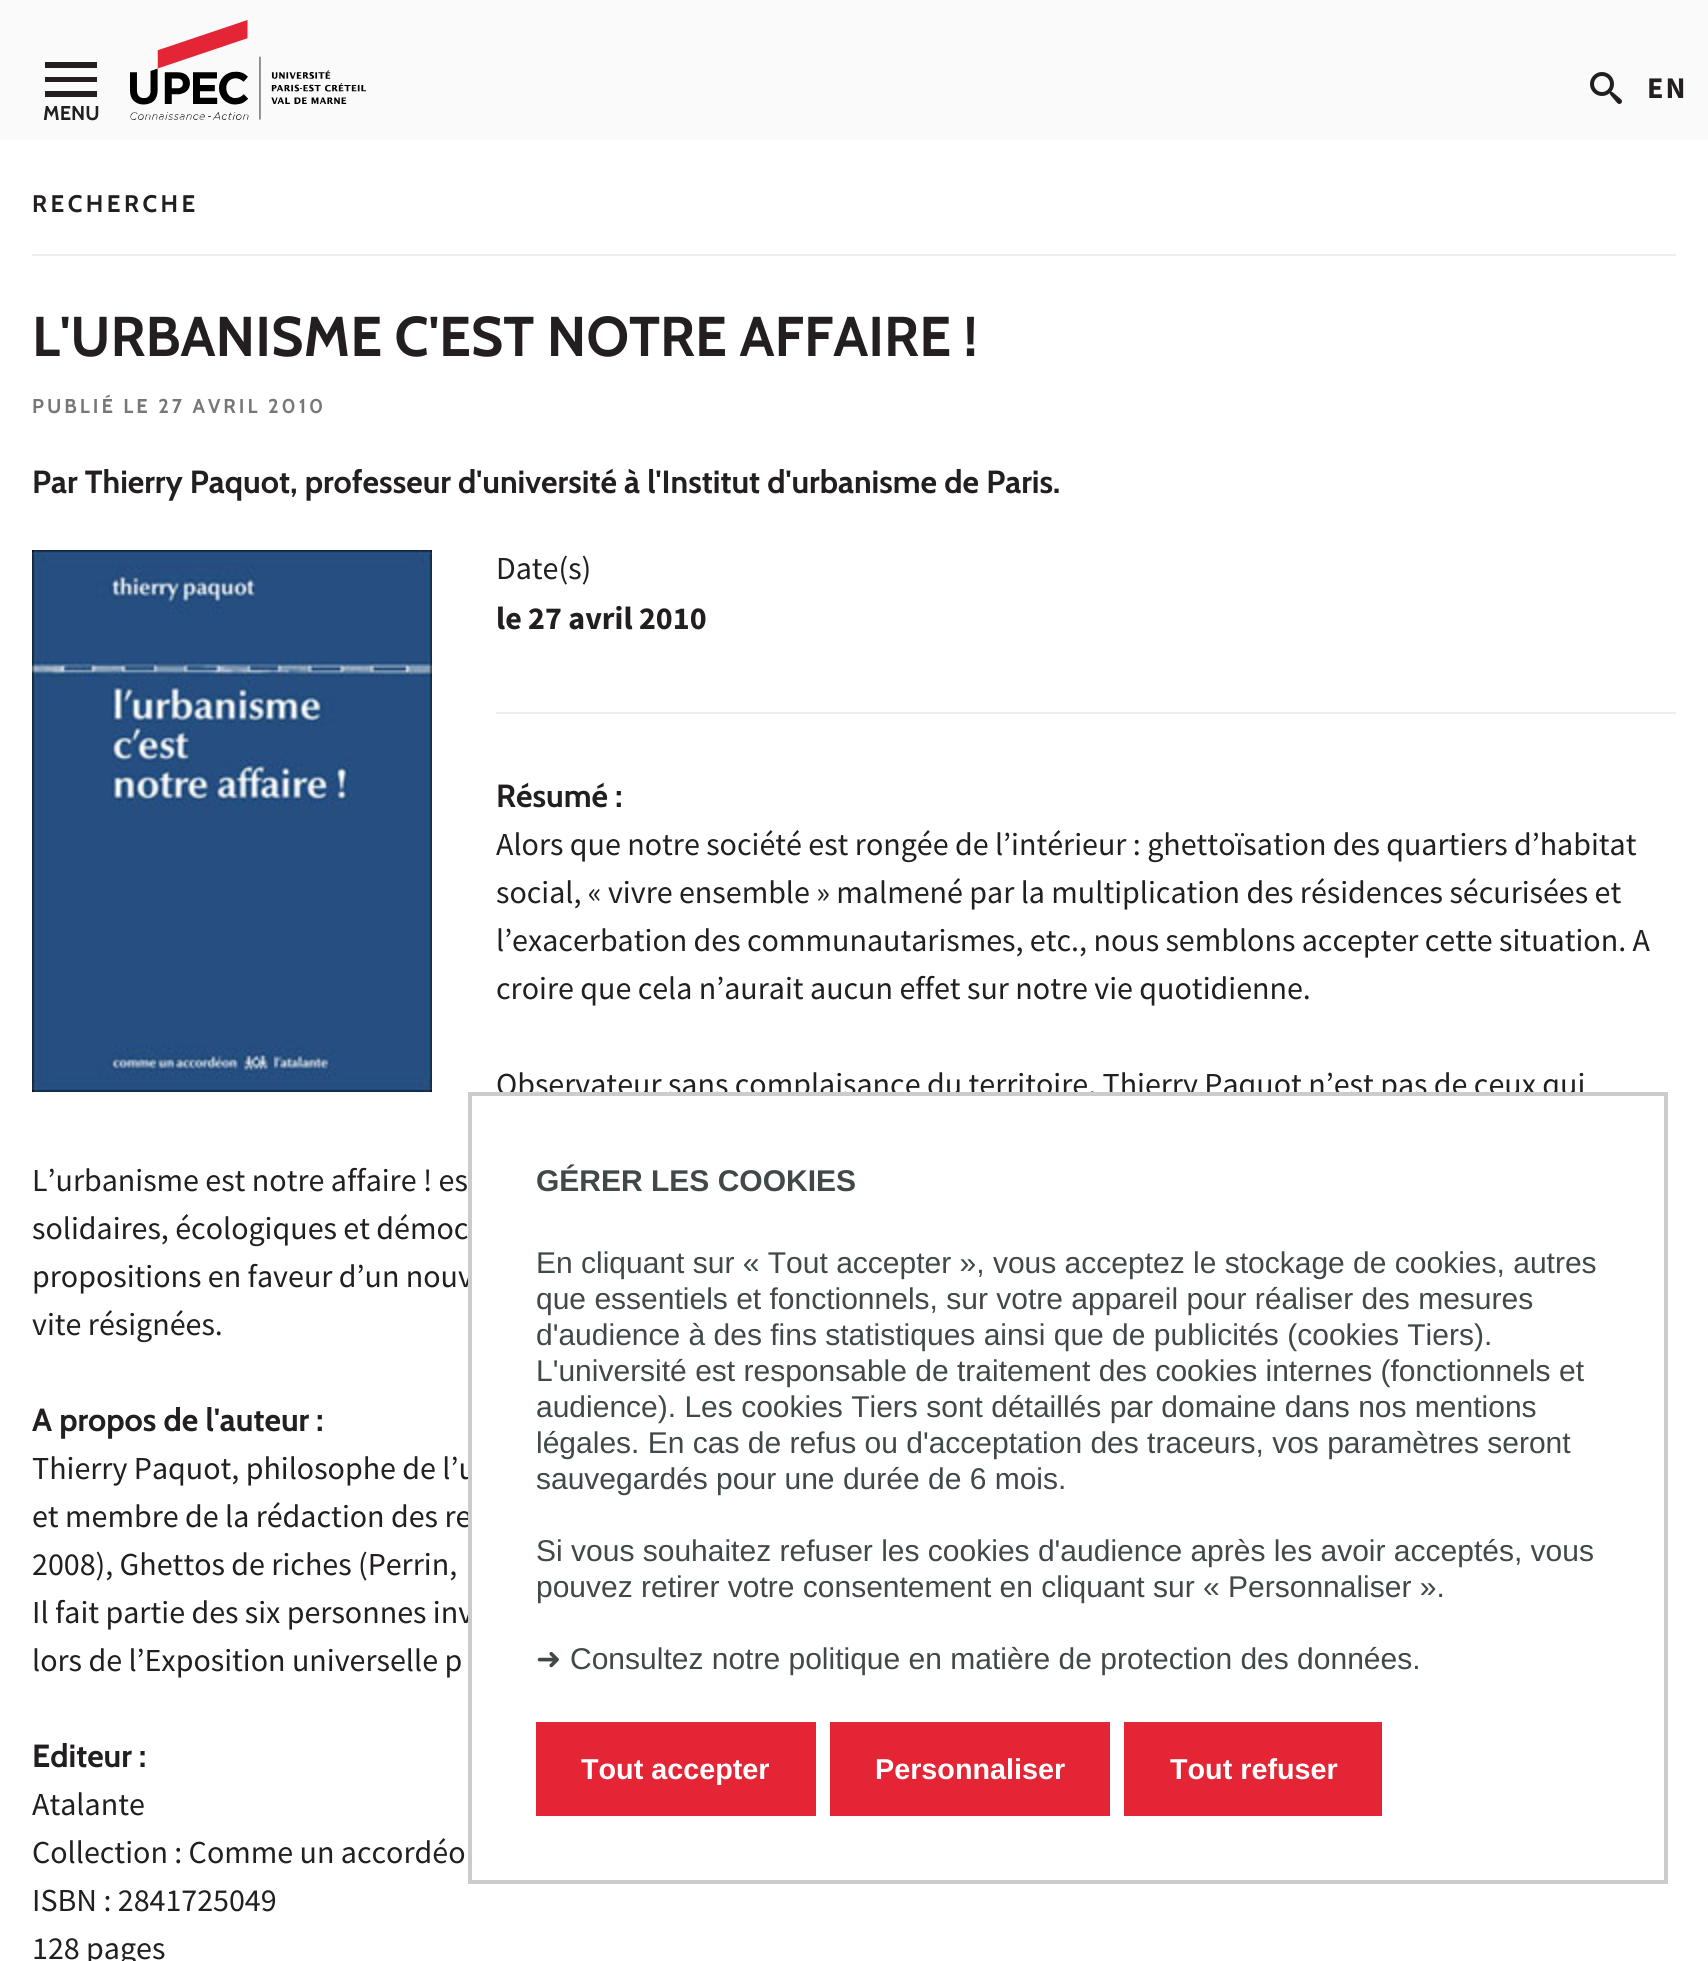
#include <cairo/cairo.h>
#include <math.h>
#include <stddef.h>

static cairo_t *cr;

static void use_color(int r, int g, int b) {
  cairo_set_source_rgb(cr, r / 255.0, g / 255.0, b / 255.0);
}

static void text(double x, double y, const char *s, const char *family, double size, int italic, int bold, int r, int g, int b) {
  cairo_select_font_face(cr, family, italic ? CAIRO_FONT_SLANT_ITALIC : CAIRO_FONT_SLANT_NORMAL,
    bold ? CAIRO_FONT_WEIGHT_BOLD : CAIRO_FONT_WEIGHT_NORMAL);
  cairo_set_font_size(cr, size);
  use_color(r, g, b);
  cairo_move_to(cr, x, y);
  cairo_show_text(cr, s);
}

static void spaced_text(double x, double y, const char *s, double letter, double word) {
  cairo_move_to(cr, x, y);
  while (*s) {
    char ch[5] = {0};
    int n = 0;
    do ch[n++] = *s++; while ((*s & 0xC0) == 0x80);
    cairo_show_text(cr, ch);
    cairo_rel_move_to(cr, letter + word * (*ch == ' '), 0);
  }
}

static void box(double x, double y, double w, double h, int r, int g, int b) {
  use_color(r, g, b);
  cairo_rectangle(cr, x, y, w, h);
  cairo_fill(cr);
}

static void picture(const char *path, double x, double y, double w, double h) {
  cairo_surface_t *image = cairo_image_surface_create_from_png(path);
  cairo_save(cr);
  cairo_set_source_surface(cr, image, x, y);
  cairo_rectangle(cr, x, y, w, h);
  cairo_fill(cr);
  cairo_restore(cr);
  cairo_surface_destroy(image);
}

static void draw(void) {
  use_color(255, 255, 255);
  cairo_paint(cr);
  box(0, 0, 1708, 140, 250, 250, 250);
  picture("img_01.png", 130, 20, 236, 100);
  picture("img_02.png", 1590, 72, 32, 32);
  use_color(35, 31, 32);
  cairo_new_path(cr);
  cairo_move_to(cr, 45, 62);
  cairo_line_to(cr, 97, 62);
  cairo_line_to(cr, 97, 68);
  cairo_line_to(cr, 45, 68);
  cairo_close_path(cr);
  cairo_move_to(cr, 45, 82);
  cairo_line_to(cr, 45, 77);
  cairo_line_to(cr, 97, 77);
  cairo_line_to(cr, 97, 82);
  cairo_close_path(cr);
  cairo_move_to(cr, 45, 97);
  cairo_line_to(cr, 45, 91);
  cairo_line_to(cr, 97, 91);
  cairo_line_to(cr, 97, 97);
  cairo_close_path(cr);
  cairo_fill(cr);
  box(32, 254, 1644, 2, 237, 237, 237);
  picture("img_03.png", 32, 550, 400, 542);
  box(496, 712, 1180, 2, 237, 237, 237);
  cairo_select_font_face(cr, "Source Sans Pro", CAIRO_FONT_SLANT_NORMAL, CAIRO_FONT_WEIGHT_BOLD);
  cairo_set_font_size(cr, 30);
  use_color(35, 31, 32);
  spaced_text(1647, 98, "EN", 2, 0);
  text(43, 120, "MENU", "Cabin", 20, 0, 1, 35, 31, 32);
  cairo_set_font_size(cr, 24);
  spaced_text(32, 212, "RECHERCHE", 3.5, 0);
  text(32, 356, "L'URBANISME C'EST NOTRE AFFAIRE !", "Cabin", 56, 0, 1, 35, 31, 32);
  cairo_set_font_size(cr, 20);
  use_color(119, 119, 119);
  spaced_text(32, 413, "PUBLIÉ LE 27 AVRIL 2010", 3, 0);
  text(32, 493, "Par Thierry Paquot, professeur d'université à l'Institut d'urbanisme de Paris.", "Cabin", 32, 0, 1, 35, 31, 32);
  text(496, 579, "Date(s)", "Source Sans Pro", 32, 0, 0, 35, 31, 32);
  text(496, 629, "le 27 avril 2010", "Source Sans Pro", 32, 0, 1, 35, 31, 32);
  text(496, 807, "Résumé :", "Cabin", 32, 0, 1, 35, 31, 32);
  text(496, 855, "Alors que notre société est rongée de l’intérieur : ghettoïsation des quartiers d’habitat", "Source Sans Pro", 32, 0, 0, 35, 31, 32);
  text(496, 903, "social, « vivre ensemble » malmené par la multiplication des résidences sécurisées et", "Source Sans Pro", 32, 0, 0, 35, 31, 32);
  text(496, 951, "l’exacerbation des communautarismes, etc., nous semblons accepter cette situation. A", "Source Sans Pro", 32, 0, 0, 35, 31, 32);
  text(496, 999, "croire que cela n’aurait aucun effet sur notre vie quotidienne.", "Source Sans Pro", 32, 0, 0, 35, 31, 32);
  text(496, 1095, "Observateur sans complaisance du territoire, Thierry Paquot n’est pas de ceux qui", "Source Sans Pro", 32, 0, 0, 35, 31, 32);
  text(32, 1191, "L’urbanisme est notre affaire ! es", "Source Sans Pro", 32, 0, 0, 35, 31, 32);
  text(32, 1239, "solidaires, écologiques et démoc", "Source Sans Pro", 32, 0, 0, 35, 31, 32);
  text(32, 1287, "propositions en faveur d’un nouv", "Source Sans Pro", 32, 0, 0, 35, 31, 32);
  text(32, 1335, "vite résignées.", "Source Sans Pro", 32, 0, 0, 35, 31, 32);
  text(32, 1431, "A propos de l'auteur :", "Cabin", 32, 0, 1, 35, 31, 32);
  text(32, 1479, "Thierry Paquot, philosophe de l’u", "Source Sans Pro", 32, 0, 0, 35, 31, 32);
  text(32, 1527, "et membre de la rédaction des re", "Source Sans Pro", 32, 0, 0, 35, 31, 32);
  text(32, 1575, "2008), Ghettos de riches (Perrin,", "Source Sans Pro", 32, 0, 0, 35, 31, 32);
  text(32, 1623, "Il fait partie des six personnes inv", "Source Sans Pro", 32, 0, 0, 35, 31, 32);
  text(32, 1671, "lors de l’Exposition universelle p", "Source Sans Pro", 32, 0, 0, 35, 31, 32);
  text(32, 1767, "Editeur :", "Cabin", 32, 0, 1, 35, 31, 32);
  text(32, 1815, "Atalante", "Source Sans Pro", 32, 0, 0, 35, 31, 32);
  text(32, 1863, "Collection : Comme un accordéo", "Source Sans Pro", 32, 0, 0, 35, 31, 32);
  text(32, 1911, "ISBN : 2841725049", "Source Sans Pro", 32, 0, 0, 35, 31, 32);
  text(32, 1959, "128 pages", "Source Sans Pro", 32, 0, 0, 35, 31, 32);
  box(472, 1096, 1086, 514, 255, 255, 255);
  cairo_rectangle(cr, 470, 1094, 1196, 788);
  use_color(204, 204, 204);
  cairo_set_line_width(cr, 4);
  cairo_stroke(cr);
  text(536, 1191, "GÉRER LES COOKIES", "Liberation Sans", 30, 0, 1, 64, 72, 73);
  text(536, 1273, "En cliquant sur « Tout accepter », vous acceptez le stockage de cookies, autres", "Liberation Sans", 30, 0, 0, 64, 72, 73);
  text(536, 1309, "que essentiels et fonctionnels, sur votre appareil pour réaliser des mesures", "Liberation Sans", 30, 0, 0, 64, 72, 73);
  text(536, 1345, "d'audience à des fins statistiques ainsi que de publicités (cookies Tiers).", "Liberation Sans", 30, 0, 0, 64, 72, 73);
  text(536, 1381, "L'université est responsable de traitement des cookies internes (fonctionnels et", "Liberation Sans", 30, 0, 0, 64, 72, 73);
  text(536, 1417, "audience). Les cookies Tiers sont détaillés par domaine dans nos mentions", "Liberation Sans", 30, 0, 0, 64, 72, 73);
  text(536, 1453, "légales. En cas de refus ou d'acceptation des traceurs, vos paramètres seront", "Liberation Sans", 30, 0, 0, 64, 72, 73);
  text(536, 1489, "sauvegardés pour une durée de 6 mois.", "Liberation Sans", 30, 0, 0, 64, 72, 73);
  text(536, 1561, "Si vous souhaitez refuser les cookies d'audience après les avoir acceptés, vous", "Liberation Sans", 30, 0, 0, 64, 72, 73);
  text(536, 1597, "pouvez retirer votre consentement en cliquant sur « Personnaliser ».", "Liberation Sans", 30, 0, 0, 64, 72, 73);
  text(536, 1669, "➜", "DejaVu Sans", 30, 0, 0, 64, 72, 73);
  text(570, 1669, "Consultez notre politique en matière de protection des données.", "Liberation Sans", 30, 0, 0, 64, 72, 73);
  box(536, 1722, 280, 94, 228, 37, 53);
  text(581, 1779, "Tout accepter", "Liberation Sans", 28.75, 0, 1, 255, 255, 255);
  box(830, 1722, 280, 94, 228, 37, 53);
  text(875, 1779, "Personnaliser", "Liberation Sans", 28.75, 0, 1, 255, 255, 255);
  box(1124, 1722, 258, 94, 228, 37, 53);
  text(1170, 1779, "Tout refuser", "Liberation Sans", 28.75, 0, 1, 255, 255, 255);
}

int main(void) {
  cairo_surface_t *surface = cairo_image_surface_create(CAIRO_FORMAT_RGB24, 1708, 1961);
  cr = cairo_create(surface);
  cairo_font_options_t *options = cairo_font_options_create();
  cairo_font_options_set_hint_metrics(options, CAIRO_HINT_METRICS_OFF);
  cairo_font_options_set_hint_style(options, CAIRO_HINT_STYLE_NONE);
  cairo_set_font_options(cr, options);
  cairo_set_miter_limit(cr, 4);
  draw();
  cairo_surface_write_to_png(surface, "out.png");
  cairo_font_options_destroy(options);
  cairo_destroy(cr);
  cairo_surface_destroy(surface);
  return 0;
}
